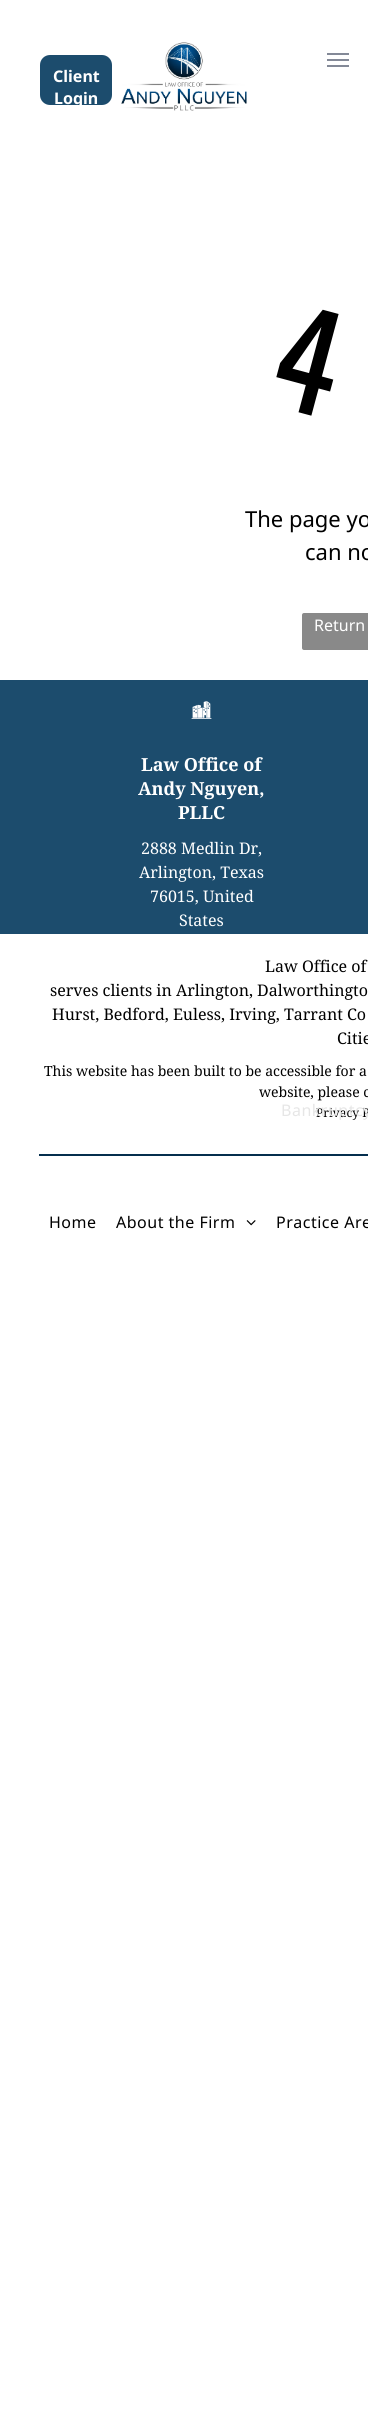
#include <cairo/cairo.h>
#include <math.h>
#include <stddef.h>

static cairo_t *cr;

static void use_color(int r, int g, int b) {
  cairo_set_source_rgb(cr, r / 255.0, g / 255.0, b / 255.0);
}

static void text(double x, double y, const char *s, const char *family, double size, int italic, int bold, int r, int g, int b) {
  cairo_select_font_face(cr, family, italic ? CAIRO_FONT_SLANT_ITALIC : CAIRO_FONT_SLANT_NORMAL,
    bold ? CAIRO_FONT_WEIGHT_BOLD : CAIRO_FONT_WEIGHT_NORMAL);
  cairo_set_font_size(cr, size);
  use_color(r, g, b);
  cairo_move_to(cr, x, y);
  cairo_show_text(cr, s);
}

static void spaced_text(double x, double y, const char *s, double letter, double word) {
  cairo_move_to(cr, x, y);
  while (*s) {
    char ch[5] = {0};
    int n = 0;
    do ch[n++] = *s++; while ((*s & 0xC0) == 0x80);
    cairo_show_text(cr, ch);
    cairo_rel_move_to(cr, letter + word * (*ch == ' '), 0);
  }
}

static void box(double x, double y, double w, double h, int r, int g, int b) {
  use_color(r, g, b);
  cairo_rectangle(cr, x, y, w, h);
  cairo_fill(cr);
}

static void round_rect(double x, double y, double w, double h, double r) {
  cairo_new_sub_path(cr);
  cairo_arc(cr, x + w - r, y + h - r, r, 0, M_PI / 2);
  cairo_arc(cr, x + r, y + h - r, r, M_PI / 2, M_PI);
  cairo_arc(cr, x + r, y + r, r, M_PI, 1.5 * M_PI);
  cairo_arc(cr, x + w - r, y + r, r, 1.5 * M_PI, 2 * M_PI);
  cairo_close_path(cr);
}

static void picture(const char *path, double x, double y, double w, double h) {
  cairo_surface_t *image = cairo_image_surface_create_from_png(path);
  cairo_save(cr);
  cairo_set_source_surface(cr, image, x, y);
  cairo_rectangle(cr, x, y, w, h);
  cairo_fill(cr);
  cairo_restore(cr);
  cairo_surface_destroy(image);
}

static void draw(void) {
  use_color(255, 255, 255);
  cairo_paint(cr);
  box(327, 53, 22, 2, 131, 137, 151);
  box(327, 59, 22, 2, 131, 137, 151);
  box(327, 65, 22, 2, 131, 137, 151);
  use_color(28, 76, 109);
  round_rect(40, 55, 72, 50, 10);
  cairo_fill(cr);
  picture("img_01.png", 121, 42, 126, 69);
  use_color(137, 137, 137);
  round_rect(302, 613, 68, 37, 2);
  cairo_fill(cr);
  box(0, 680, 368, 254, 28, 76, 109);
  picture("img_02.png", 191, 701, 21, 18);
  picture("img_03.png", 246, 1220, 10, 6);
  box(39, 1154, 329, 2, 5, 47, 78);
  text(53, 82, "Client", "Noto Sans", 16, 0, 1, 255, 255, 255);
  text(54, 104, "Login", "Noto Sans", 16, 0, 1, 255, 255, 255);
  cairo_save(cr);
  cairo_translate(cr, 264, 403);
  cairo_rotate(cr, 15 * M_PI / 180);
  text(0, 0, "4", "Oswald", 130, 0, 0, 0, 0, 0);
  cairo_restore(cr);
  text(245, 527, "The page yo", "Noto Sans", 22, 0, 0, 0, 0, 0);
  text(305, 560, "can no", "Noto Sans", 22, 0, 0, 0, 0, 0);
  text(314, 631, "Return", "Noto Sans", 16, 0, 0, 255, 255, 255);
  text(141, 771, "Law Office of", "Noto Serif", 18, 0, 1, 255, 255, 255);
  text(138, 795, "Andy Nguyen,", "Noto Serif", 18, 0, 1, 255, 255, 255);
  text(178, 819, "PLLC", "Noto Serif", 18, 0, 1, 255, 255, 255);
  text(141, 854, "2888 Medlin Dr,", "Noto Serif", 16, 0, 0, 255, 255, 255);
  text(139, 878, "Arlington, Texas", "Noto Serif", 16, 0, 0, 255, 255, 255);
  text(150, 902, "76015, United", "Noto Serif", 16, 0, 0, 255, 255, 255);
  text(179, 926, "States", "Noto Serif", 16, 0, 0, 255, 255, 255);
  text(265, 972, "Law Office of", "Noto Serif", 16, 0, 0, 0, 0, 0);
  text(50, 996, "serves clients in Arlington, Dalworthingto", "Noto Serif", 16, 0, 0, 0, 0, 0);
  text(52, 1020, "Hurst, Bedford, Euless, Irving, Tarrant Co", "Noto Serif", 16, 0, 0, 0, 0, 0);
  text(337, 1044, "Citie", "Noto Serif", 16, 0, 0, 0, 0, 0);
  text(44, 1076, "This website has been built to be accessible for a", "Noto Serif", 14, 0, 0, 0, 0, 0);
  text(259, 1097, "website, please c", "Noto Serif", 14, 0, 0, 0, 0, 0);
  text(316, 1117, "Privacy P", "Noto Serif", 12, 0, 0, 0, 0, 0);
  cairo_select_font_face(cr, "Noto Sans", CAIRO_FONT_SLANT_NORMAL, CAIRO_FONT_WEIGHT_NORMAL);
  cairo_set_font_size(cr, 16);
  spaced_text(49, 1228, "Home", 0.5, 0);
  spaced_text(116, 1228, "About the Firm", 0.5, 0);
  use_color(230, 230, 230);
  spaced_text(281, 1116, "Bankruptcy", 0.5, 0);
  use_color(0, 0, 0);
  spaced_text(276, 1228, "Practice Are", 0.5, 0);
}

int main(void) {
  cairo_surface_t *surface = cairo_image_surface_create(CAIRO_FORMAT_RGB24, 368, 2427);
  cr = cairo_create(surface);
  cairo_font_options_t *options = cairo_font_options_create();
  cairo_font_options_set_hint_metrics(options, CAIRO_HINT_METRICS_OFF);
  cairo_font_options_set_hint_style(options, CAIRO_HINT_STYLE_NONE);
  cairo_set_font_options(cr, options);
  cairo_set_miter_limit(cr, 4);
  draw();
  cairo_surface_write_to_png(surface, "out.png");
  cairo_font_options_destroy(options);
  cairo_destroy(cr);
  cairo_surface_destroy(surface);
  return 0;
}
